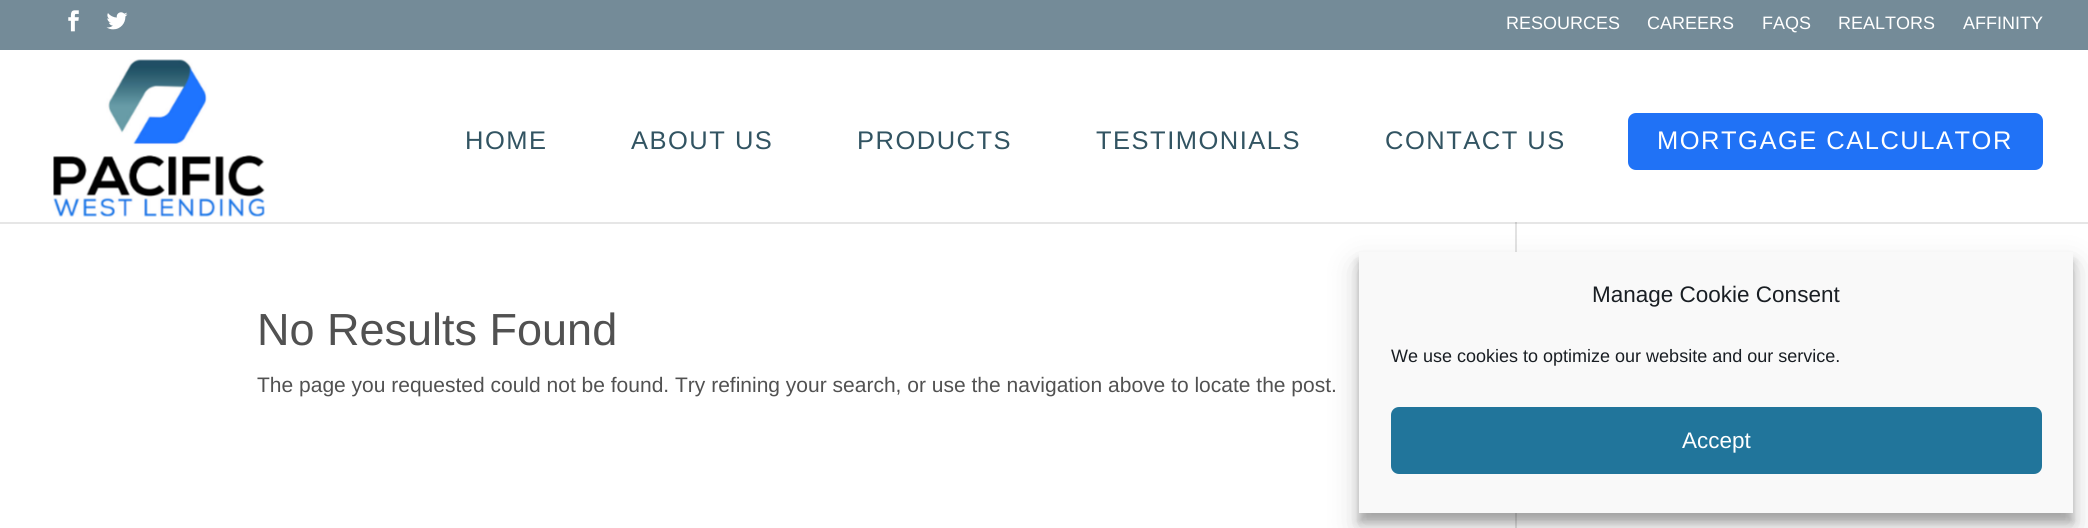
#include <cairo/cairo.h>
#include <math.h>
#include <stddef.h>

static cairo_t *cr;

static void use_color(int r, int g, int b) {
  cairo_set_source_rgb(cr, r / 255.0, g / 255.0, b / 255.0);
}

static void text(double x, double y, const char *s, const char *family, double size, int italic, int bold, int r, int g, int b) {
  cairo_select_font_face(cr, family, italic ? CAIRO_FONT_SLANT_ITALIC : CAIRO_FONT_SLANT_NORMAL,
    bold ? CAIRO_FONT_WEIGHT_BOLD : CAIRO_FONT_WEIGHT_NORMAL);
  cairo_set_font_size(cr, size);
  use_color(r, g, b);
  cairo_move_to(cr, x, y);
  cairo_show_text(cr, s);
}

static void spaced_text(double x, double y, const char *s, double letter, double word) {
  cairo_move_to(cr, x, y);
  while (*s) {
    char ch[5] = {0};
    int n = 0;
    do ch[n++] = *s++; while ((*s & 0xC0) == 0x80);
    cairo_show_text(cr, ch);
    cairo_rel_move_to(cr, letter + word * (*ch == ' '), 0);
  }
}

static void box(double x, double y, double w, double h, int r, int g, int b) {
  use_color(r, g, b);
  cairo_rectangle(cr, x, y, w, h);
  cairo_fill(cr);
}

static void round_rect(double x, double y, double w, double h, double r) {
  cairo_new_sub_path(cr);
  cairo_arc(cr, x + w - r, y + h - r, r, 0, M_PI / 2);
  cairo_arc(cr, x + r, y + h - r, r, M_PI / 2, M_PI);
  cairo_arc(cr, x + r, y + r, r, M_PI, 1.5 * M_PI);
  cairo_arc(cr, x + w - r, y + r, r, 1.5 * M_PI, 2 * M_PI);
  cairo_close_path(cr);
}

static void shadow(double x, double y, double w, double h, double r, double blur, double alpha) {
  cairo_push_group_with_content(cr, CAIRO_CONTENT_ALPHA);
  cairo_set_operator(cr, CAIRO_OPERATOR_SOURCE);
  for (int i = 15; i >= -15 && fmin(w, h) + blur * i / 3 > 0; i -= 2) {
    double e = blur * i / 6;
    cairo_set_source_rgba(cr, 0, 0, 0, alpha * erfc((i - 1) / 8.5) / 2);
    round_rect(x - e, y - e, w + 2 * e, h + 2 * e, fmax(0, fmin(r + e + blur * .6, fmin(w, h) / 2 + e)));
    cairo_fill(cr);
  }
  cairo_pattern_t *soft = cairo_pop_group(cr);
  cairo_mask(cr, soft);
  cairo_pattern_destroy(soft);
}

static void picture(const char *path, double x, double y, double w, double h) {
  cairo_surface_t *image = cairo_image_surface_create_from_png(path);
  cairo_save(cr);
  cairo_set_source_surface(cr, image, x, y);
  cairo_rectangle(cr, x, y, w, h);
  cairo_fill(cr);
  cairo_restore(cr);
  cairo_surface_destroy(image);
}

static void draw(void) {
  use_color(116, 139, 152);
  cairo_paint(cr);
  picture("img_01.png", 68, 10, 11, 22);
  picture("img_02.png", 106, 12, 22, 18);
  box(0, 224, 2088, 304, 255, 255, 255);
  box(0, 222, 2088, 2, 230, 230, 230);
  box(1515, 221, 2, 307, 226, 226, 226);
  box(1515, 222, 2, 2, 203, 203, 203);
  use_color(0, 0, 0);
  shadow(1359, 267, 714, 261, 0, 15, 0.19);
  box(0, 50, 2088, 172, 255, 255, 255);
  picture("img_03.png", 53, 59, 212, 158);
  use_color(32, 114, 246);
  round_rect(1628, 113, 415, 57, 8);
  cairo_fill(cr);
  use_color(0, 0, 0);
  shadow(1359, 261, 714, 261, 0, 4.5, 0.23);
  box(1359, 252, 714, 261, 249, 249, 249);
  use_color(33, 117, 155);
  round_rect(1392, 408, 649, 65, 7);
  cairo_fill_preserve(cr);
  cairo_stroke(cr);
  text(1506, 29, "RESOURCES", "Liberation Sans", 18, 0, 0, 255, 255, 255);
  text(1647, 29, "CAREERS", "Liberation Sans", 18, 0, 0, 255, 255, 255);
  text(1762, 29, "FAQS", "Liberation Sans", 18, 0, 0, 255, 255, 255);
  text(1838, 29, "REALTORS", "Liberation Sans", 18, 0, 0, 255, 255, 255);
  text(1963, 29, "AFFINITY", "Liberation Sans", 18, 0, 0, 255, 255, 255);
  cairo_set_font_size(cr, 25.5);
  use_color(50, 84, 98);
  spaced_text(465, 149, "HOME", 1.5, 0);
  spaced_text(631, 149, "ABOUT US", 1.5, 0);
  spaced_text(857, 149, "PRODUCTS", 1.5, 0);
  spaced_text(1096, 149, "TESTIMONIALS", 1.5, 0);
  spaced_text(1385, 149, "CONTACT US", 1.5, 0);
  use_color(255, 255, 255);
  spaced_text(1657, 149, "MORTGAGE CALCULATOR", 1.5, 0);
  text(257, 345, "No Results Found", "Liberation Sans", 45, 0, 0, 81, 81, 81);
  text(257, 392, "The page you requested could not be found. Try refining your search, or use the navigation above to locate the post.", "Liberation Sans", 21, 0, 0, 81, 81, 81);
  text(1592, 302, "Manage Cookie Consent", "Liberation Sans", 22.5, 0, 0, 25, 30, 35);
  text(1391, 362, "We use cookies to optimize our website and our service.", "Liberation Sans", 18, 0, 0, 25, 30, 35);
  text(1682, 448, "Accept", "Liberation Sans", 22.5, 0, 0, 255, 255, 255);
}

int main(void) {
  cairo_surface_t *surface = cairo_image_surface_create(CAIRO_FORMAT_RGB24, 2088, 528);
  cr = cairo_create(surface);
  cairo_font_options_t *options = cairo_font_options_create();
  cairo_font_options_set_hint_metrics(options, CAIRO_HINT_METRICS_OFF);
  cairo_font_options_set_hint_style(options, CAIRO_HINT_STYLE_NONE);
  cairo_set_font_options(cr, options);
  cairo_set_miter_limit(cr, 4);
  draw();
  cairo_surface_write_to_png(surface, "out.png");
  cairo_font_options_destroy(options);
  cairo_destroy(cr);
  cairo_surface_destroy(surface);
  return 0;
}
